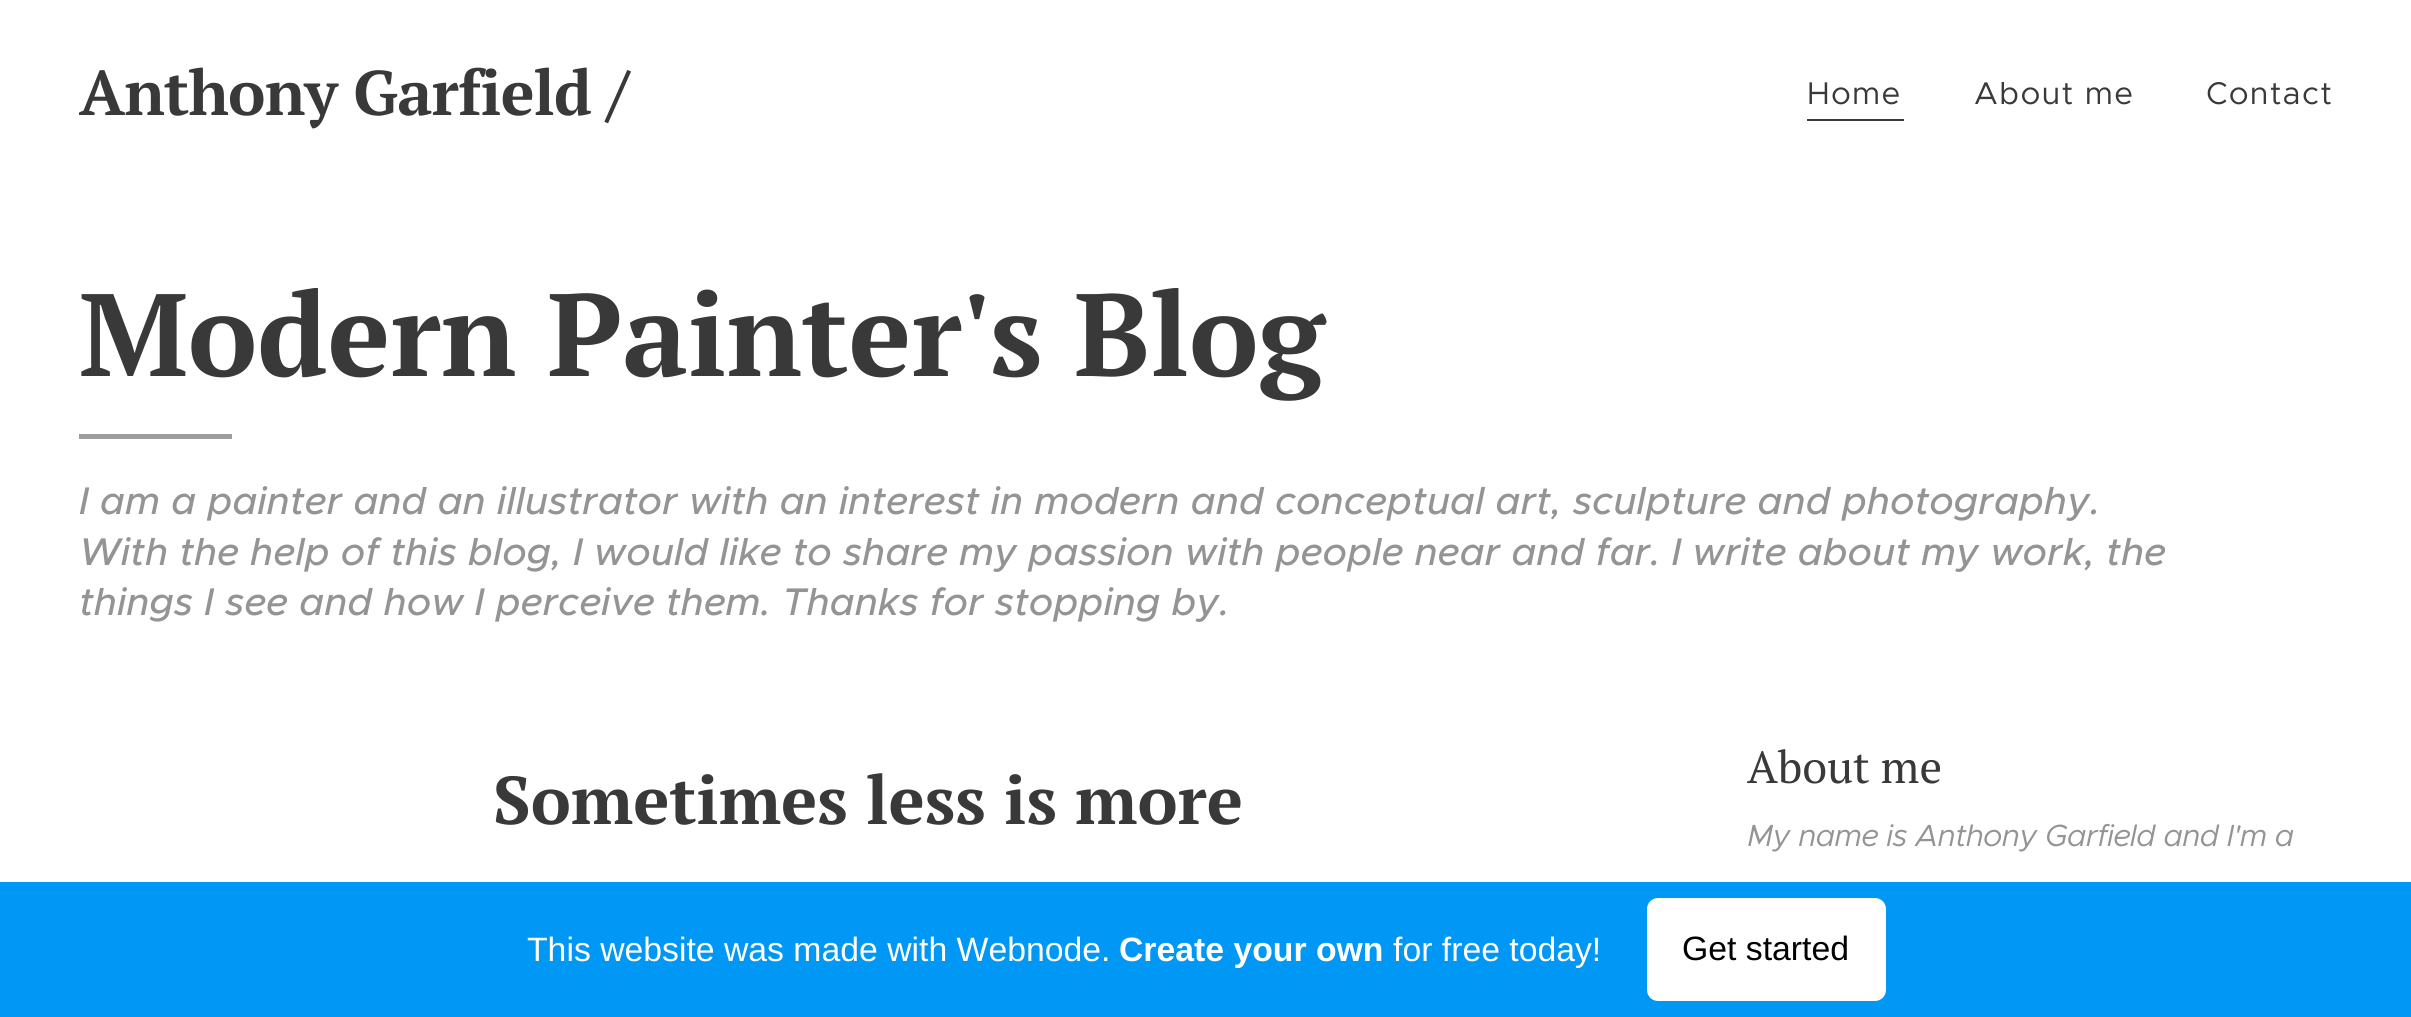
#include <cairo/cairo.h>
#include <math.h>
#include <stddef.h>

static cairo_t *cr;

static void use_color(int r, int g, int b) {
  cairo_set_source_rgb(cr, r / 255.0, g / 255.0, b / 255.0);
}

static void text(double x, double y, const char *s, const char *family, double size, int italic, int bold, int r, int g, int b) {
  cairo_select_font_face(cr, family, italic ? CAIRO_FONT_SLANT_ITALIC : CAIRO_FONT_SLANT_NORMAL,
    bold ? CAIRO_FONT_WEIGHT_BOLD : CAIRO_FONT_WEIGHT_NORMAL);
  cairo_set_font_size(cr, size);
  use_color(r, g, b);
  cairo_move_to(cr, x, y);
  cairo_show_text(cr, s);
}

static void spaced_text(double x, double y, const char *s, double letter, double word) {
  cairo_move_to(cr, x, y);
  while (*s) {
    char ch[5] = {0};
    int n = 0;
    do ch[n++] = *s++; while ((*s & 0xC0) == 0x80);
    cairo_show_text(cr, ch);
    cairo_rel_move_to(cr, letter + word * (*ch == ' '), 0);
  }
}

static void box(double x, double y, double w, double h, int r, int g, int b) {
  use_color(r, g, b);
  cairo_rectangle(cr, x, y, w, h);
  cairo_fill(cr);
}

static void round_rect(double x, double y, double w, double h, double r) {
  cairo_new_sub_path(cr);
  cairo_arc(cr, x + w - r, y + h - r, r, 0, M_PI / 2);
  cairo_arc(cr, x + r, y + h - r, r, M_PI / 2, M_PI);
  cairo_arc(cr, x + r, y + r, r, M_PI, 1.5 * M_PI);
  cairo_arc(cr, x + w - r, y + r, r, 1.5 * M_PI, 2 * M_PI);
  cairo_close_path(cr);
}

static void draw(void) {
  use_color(255, 255, 255);
  cairo_paint(cr);
  box(1807, 119, 97, 2, 57, 57, 57);
  box(79, 434, 153, 5, 157, 157, 157);
  box(0, 882, 2411, 135, 0, 151, 245);
  use_color(255, 255, 255);
  round_rect(1647, 898, 239, 103, 11);
  cairo_fill(cr);
  cairo_select_font_face(cr, "PT Serif", CAIRO_FONT_SLANT_NORMAL, CAIRO_FONT_WEIGHT_BOLD);
  cairo_set_font_size(cr, 63);
  use_color(57, 57, 57);
  spaced_text(79, 115, "Anthony Garfield /", -0.75, 0);
  cairo_select_font_face(cr, "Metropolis", CAIRO_FONT_SLANT_NORMAL, CAIRO_FONT_WEIGHT_NORMAL);
  cairo_set_font_size(cr, 31.5);
  spaced_text(1807, 104, "Home", 1.25, 0);
  spaced_text(1974, 104, "About me", 1.25, 0);
  spaced_text(2206, 104, "Contact", 1.25, 0);
  text(79, 376, "Modern Painter's Blog", "PT Serif", 117, 0, 1, 57, 57, 57);
  text(79, 514, "I am a painter and an illustrator with an interest in modern and conceptual art, sculpture and photography.", "Metropolis Medium", 38.7, 1, 0, 148, 148, 148);
  text(79, 565, "With the help of this blog, I would like to share my passion with people near and far. I write about my work, the", "Metropolis Medium", 38.7, 1, 0, 148, 148, 148);
  text(79, 615, "things I see and how I perceive them. Thanks for stopping by.", "Metropolis Medium", 38.7, 1, 0, 148, 148, 148);
  text(493, 824, "Sometimes less is more", "PT Serif", 67.5, 0, 1, 57, 57, 57);
  text(1747, 783, "About me", "PT Serif", 45, 0, 0, 57, 57, 57);
  cairo_select_font_face(cr, "Metropolis", CAIRO_FONT_SLANT_ITALIC, CAIRO_FONT_WEIGHT_NORMAL);
  cairo_set_font_size(cr, 30.75);
  use_color(148, 148, 148);
  spaced_text(1747, 846, "My name is Anthony Garfield and I'm a", -0.75, 0);
  text(527, 961, "This website was made with Webnode.", "Liberation Sans", 33.75, 0, 0, 255, 255, 255);
  text(1119, 961, "Create your own", "Liberation Sans", 33.75, 0, 1, 255, 255, 255);
  text(1393, 961, "for free today!", "Liberation Sans", 33.75, 0, 0, 255, 255, 255);
  text(1682, 960, "Get started", "Liberation Sans", 33.75, 0, 0, 0, 0, 0);
}

int main(void) {
  cairo_surface_t *surface = cairo_image_surface_create(CAIRO_FORMAT_RGB24, 2411, 1017);
  cr = cairo_create(surface);
  cairo_font_options_t *options = cairo_font_options_create();
  cairo_font_options_set_hint_metrics(options, CAIRO_HINT_METRICS_OFF);
  cairo_font_options_set_hint_style(options, CAIRO_HINT_STYLE_NONE);
  cairo_set_font_options(cr, options);
  cairo_set_miter_limit(cr, 4);
  draw();
  cairo_surface_write_to_png(surface, "out.png");
  cairo_font_options_destroy(options);
  cairo_destroy(cr);
  cairo_surface_destroy(surface);
  return 0;
}
